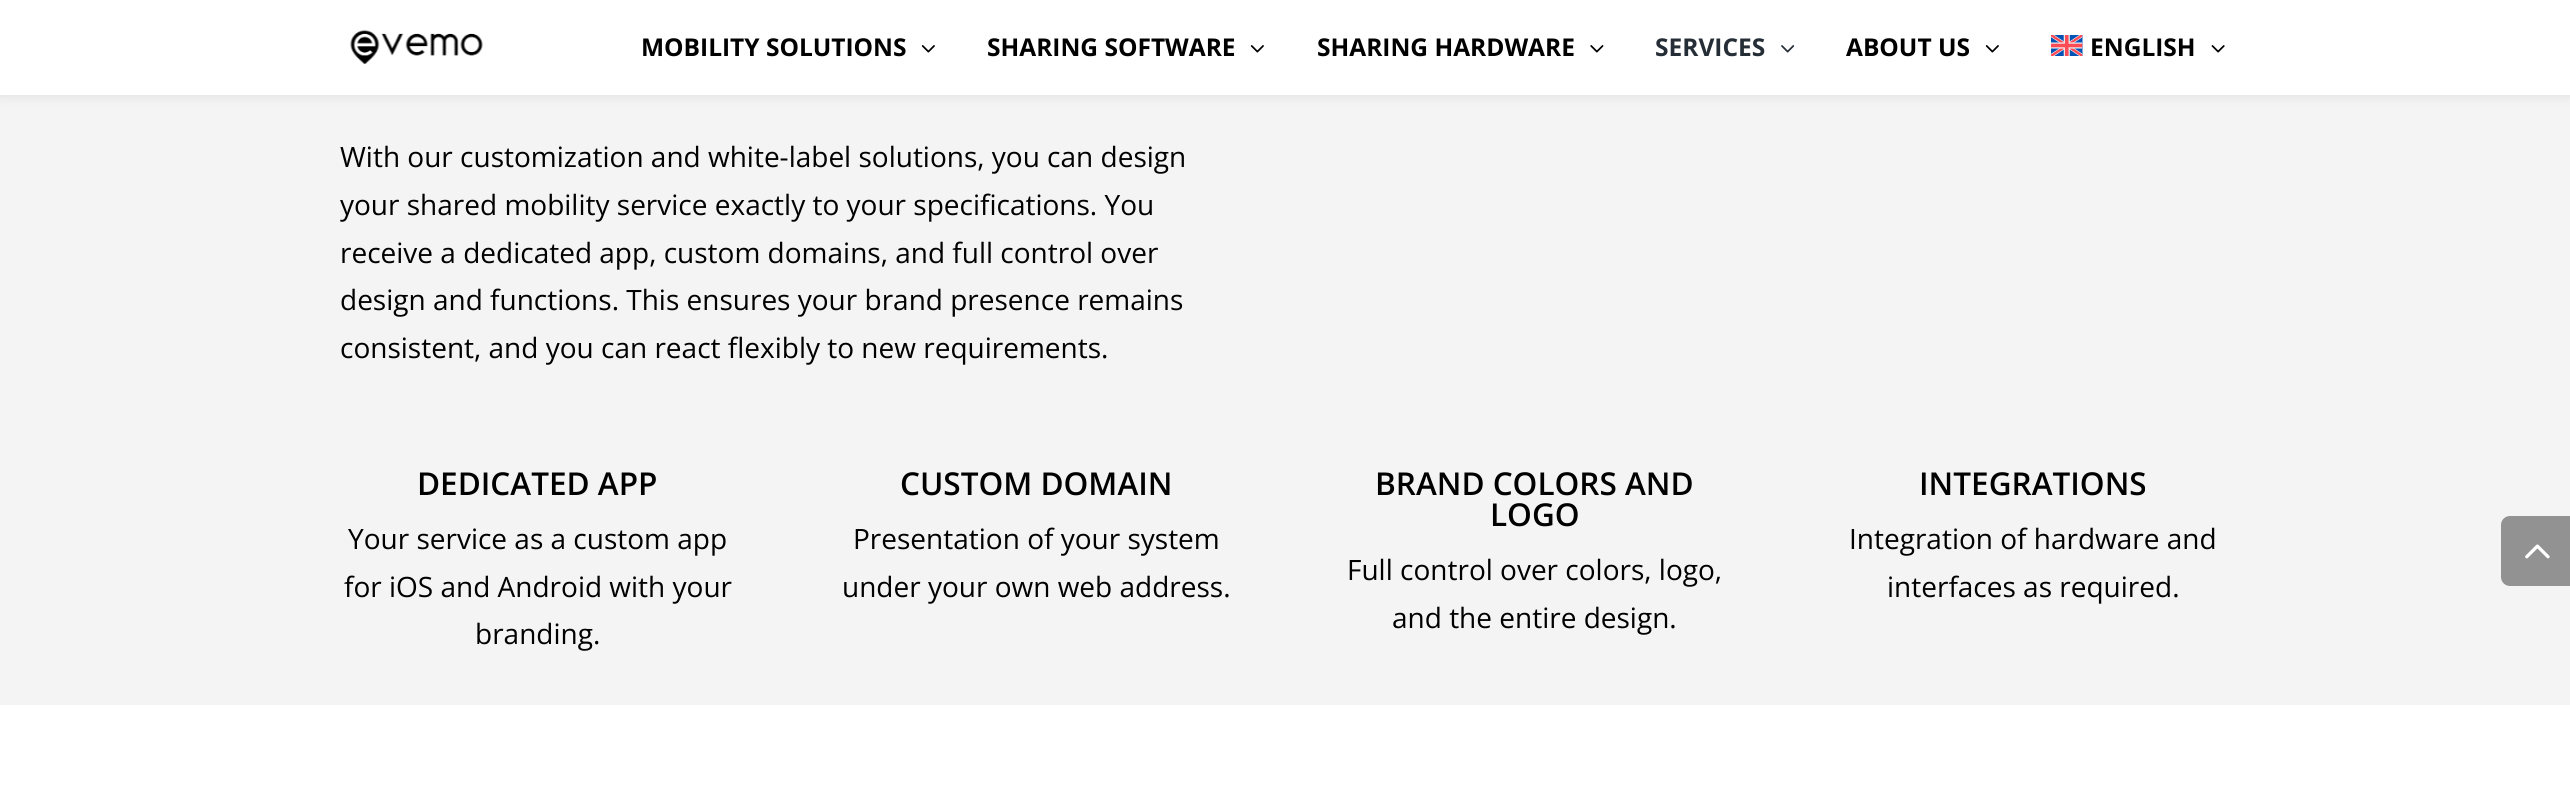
#include <cairo/cairo.h>
#include <math.h>
#include <stddef.h>

static cairo_t *cr;

static void use_color(int r, int g, int b) {
  cairo_set_source_rgb(cr, r / 255.0, g / 255.0, b / 255.0);
}

static void text(double x, double y, const char *s, const char *family, double size, int italic, int bold, int r, int g, int b) {
  cairo_select_font_face(cr, family, italic ? CAIRO_FONT_SLANT_ITALIC : CAIRO_FONT_SLANT_NORMAL,
    bold ? CAIRO_FONT_WEIGHT_BOLD : CAIRO_FONT_WEIGHT_NORMAL);
  cairo_set_font_size(cr, size);
  use_color(r, g, b);
  cairo_move_to(cr, x, y);
  cairo_show_text(cr, s);
}

static void box(double x, double y, double w, double h, int r, int g, int b) {
  use_color(r, g, b);
  cairo_rectangle(cr, x, y, w, h);
  cairo_fill(cr);
}

static void round_rect(double x, double y, double w, double h, double r) {
  cairo_new_sub_path(cr);
  cairo_arc(cr, x + w - r, y + h - r, r, 0, M_PI / 2);
  cairo_arc(cr, x + r, y + h - r, r, M_PI / 2, M_PI);
  cairo_arc(cr, x + r, y + r, r, M_PI, 1.5 * M_PI);
  cairo_arc(cr, x + w - r, y + r, r, 1.5 * M_PI, 2 * M_PI);
  cairo_close_path(cr);
}

static void shadow(double x, double y, double w, double h, double r, double blur, double alpha) {
  cairo_push_group_with_content(cr, CAIRO_CONTENT_ALPHA);
  cairo_set_operator(cr, CAIRO_OPERATOR_SOURCE);
  for (int i = 15; i >= -15 && fmin(w, h) + blur * i / 3 > 0; i -= 2) {
    double e = blur * i / 6;
    cairo_set_source_rgba(cr, 0, 0, 0, alpha * erfc((i - 1) / 8.5) / 2);
    round_rect(x - e, y - e, w + 2 * e, h + 2 * e, fmax(0, fmin(r + e + blur * .6, fmin(w, h) / 2 + e)));
    cairo_fill(cr);
  }
  cairo_pattern_t *soft = cairo_pop_group(cr);
  cairo_mask(cr, soft);
  cairo_pattern_destroy(soft);
}

static void picture(const char *path, double x, double y, double w, double h) {
  cairo_surface_t *image = cairo_image_surface_create_from_png(path);
  cairo_save(cr);
  cairo_set_source_surface(cr, image, x, y);
  cairo_rectangle(cr, x, y, w, h);
  cairo_fill(cr);
  cairo_restore(cr);
  cairo_surface_destroy(image);
}

static void draw(void) {
  use_color(255, 255, 255);
  cairo_paint(cr);
  box(0, 95, 2570, 610, 244, 244, 244);
  use_color(0, 0, 0);
  shadow(0, 0, 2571, 95, 0, 6, 0.1);
  box(0, 0, 2570, 95, 255, 255, 255);
  picture("img_01.png", 350, 30, 133, 34);
  picture("img_02.png", 921, 45, 14, 8);
  picture("img_02.png", 1250, 45, 14, 8);
  picture("img_03.png", 1590, 45, 14, 8);
  picture("img_04.png", 1781, 45, 14, 8);
  picture("img_02.png", 1985, 45, 14, 8);
  picture("img_05.png", 2051, 35, 32, 21);
  picture("img_06.png", 2211, 45, 14, 8);
  use_color(146, 146, 146);
  cairo_new_path(cr);
  cairo_move_to(cr, 2510, 516);
  cairo_line_to(cr, 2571, 516);
  cairo_line_to(cr, 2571, 586);
  cairo_line_to(cr, 2510, 586);
  cairo_curve_to(cr, 2505, 586, 2501, 582, 2501, 577);
  cairo_line_to(cr, 2501, 525);
  cairo_curve_to(cr, 2501, 520, 2505, 516, 2510, 516);
  cairo_close_path(cr);
  cairo_fill(cr);
  picture("img_07.png", 2525, 544, 25, 15);
  text(641, 56, "MOBILITY SOLUTIONS", "Open Sans", 24.5, 0, 1, 0, 0, 0);
  text(987, 56, "SHARING SOFTWARE", "Open Sans", 24.5, 0, 1, 0, 0, 0);
  text(1317, 56, "SHARING HARDWARE", "Open Sans", 24.5, 0, 1, 0, 0, 0);
  text(1655, 56, "SERVICES", "Open Sans", 24.5, 0, 1, 37, 45, 54);
  text(1846, 56, "ABOUT US", "Open Sans", 24.5, 0, 1, 0, 0, 0);
  text(2090, 56, "ENGLISH", "Open Sans", 24.5, 0, 1, 0, 0, 0);
  text(340, 167, "With our customization and white-label solutions, you can design", "Open Sans", 28, 0, 0, 0, 0, 0);
  text(340, 215, "your shared mobility service exactly to your specifications. You", "Open Sans", 28, 0, 0, 0, 0, 0);
  text(340, 263, "receive a dedicated app, custom domains, and full control over", "Open Sans", 28, 0, 0, 0, 0, 0);
  text(340, 310, "design and functions. This ensures your brand presence remains", "Open Sans", 28, 0, 0, 0, 0, 0);
  text(340, 358, "consistent, and you can react flexibly to new requirements.", "Open Sans", 28, 0, 0, 0, 0, 0);
  text(417, 495, "DEDICATED APP", "Open Sans SemiBold", 31.5, 0, 0, 0, 0, 0);
  text(348, 549, "Your service as a custom app", "Open Sans", 28, 0, 0, 0, 0, 0);
  text(344, 597, "for iOS and Android with your", "Open Sans", 28, 0, 0, 0, 0, 0);
  text(475, 644, "branding.", "Open Sans", 28, 0, 0, 0, 0, 0);
  text(900, 495, "CUSTOM DOMAIN", "Open Sans SemiBold", 31.5, 0, 0, 0, 0, 0);
  text(853, 549, "Presentation of your system", "Open Sans", 28, 0, 0, 0, 0, 0);
  text(842, 597, "under your own web address.", "Open Sans", 28, 0, 0, 0, 0, 0);
  text(1375, 495, "BRAND COLORS AND", "Open Sans SemiBold", 31.5, 0, 0, 0, 0, 0);
  text(1490, 526, "LOGO", "Open Sans SemiBold", 31.5, 0, 0, 0, 0, 0);
  text(1347, 580, "Full control over colors, logo,", "Open Sans", 28, 0, 0, 0, 0, 0);
  text(1392, 628, "and the entire design.", "Open Sans", 28, 0, 0, 0, 0, 0);
  text(1919, 495, "INTEGRATIONS", "Open Sans SemiBold", 31.5, 0, 0, 0, 0, 0);
  text(1849, 549, "Integration of hardware and", "Open Sans", 28, 0, 0, 0, 0, 0);
  text(1887, 597, "interfaces as required.", "Open Sans", 28, 0, 0, 0, 0, 0);
}

int main(void) {
  cairo_surface_t *surface = cairo_image_surface_create(CAIRO_FORMAT_RGB24, 2570, 804);
  cr = cairo_create(surface);
  cairo_font_options_t *options = cairo_font_options_create();
  cairo_font_options_set_hint_metrics(options, CAIRO_HINT_METRICS_OFF);
  cairo_font_options_set_hint_style(options, CAIRO_HINT_STYLE_NONE);
  cairo_set_font_options(cr, options);
  cairo_set_miter_limit(cr, 4);
  draw();
  cairo_surface_write_to_png(surface, "out.png");
  cairo_font_options_destroy(options);
  cairo_destroy(cr);
  cairo_surface_destroy(surface);
  return 0;
}
